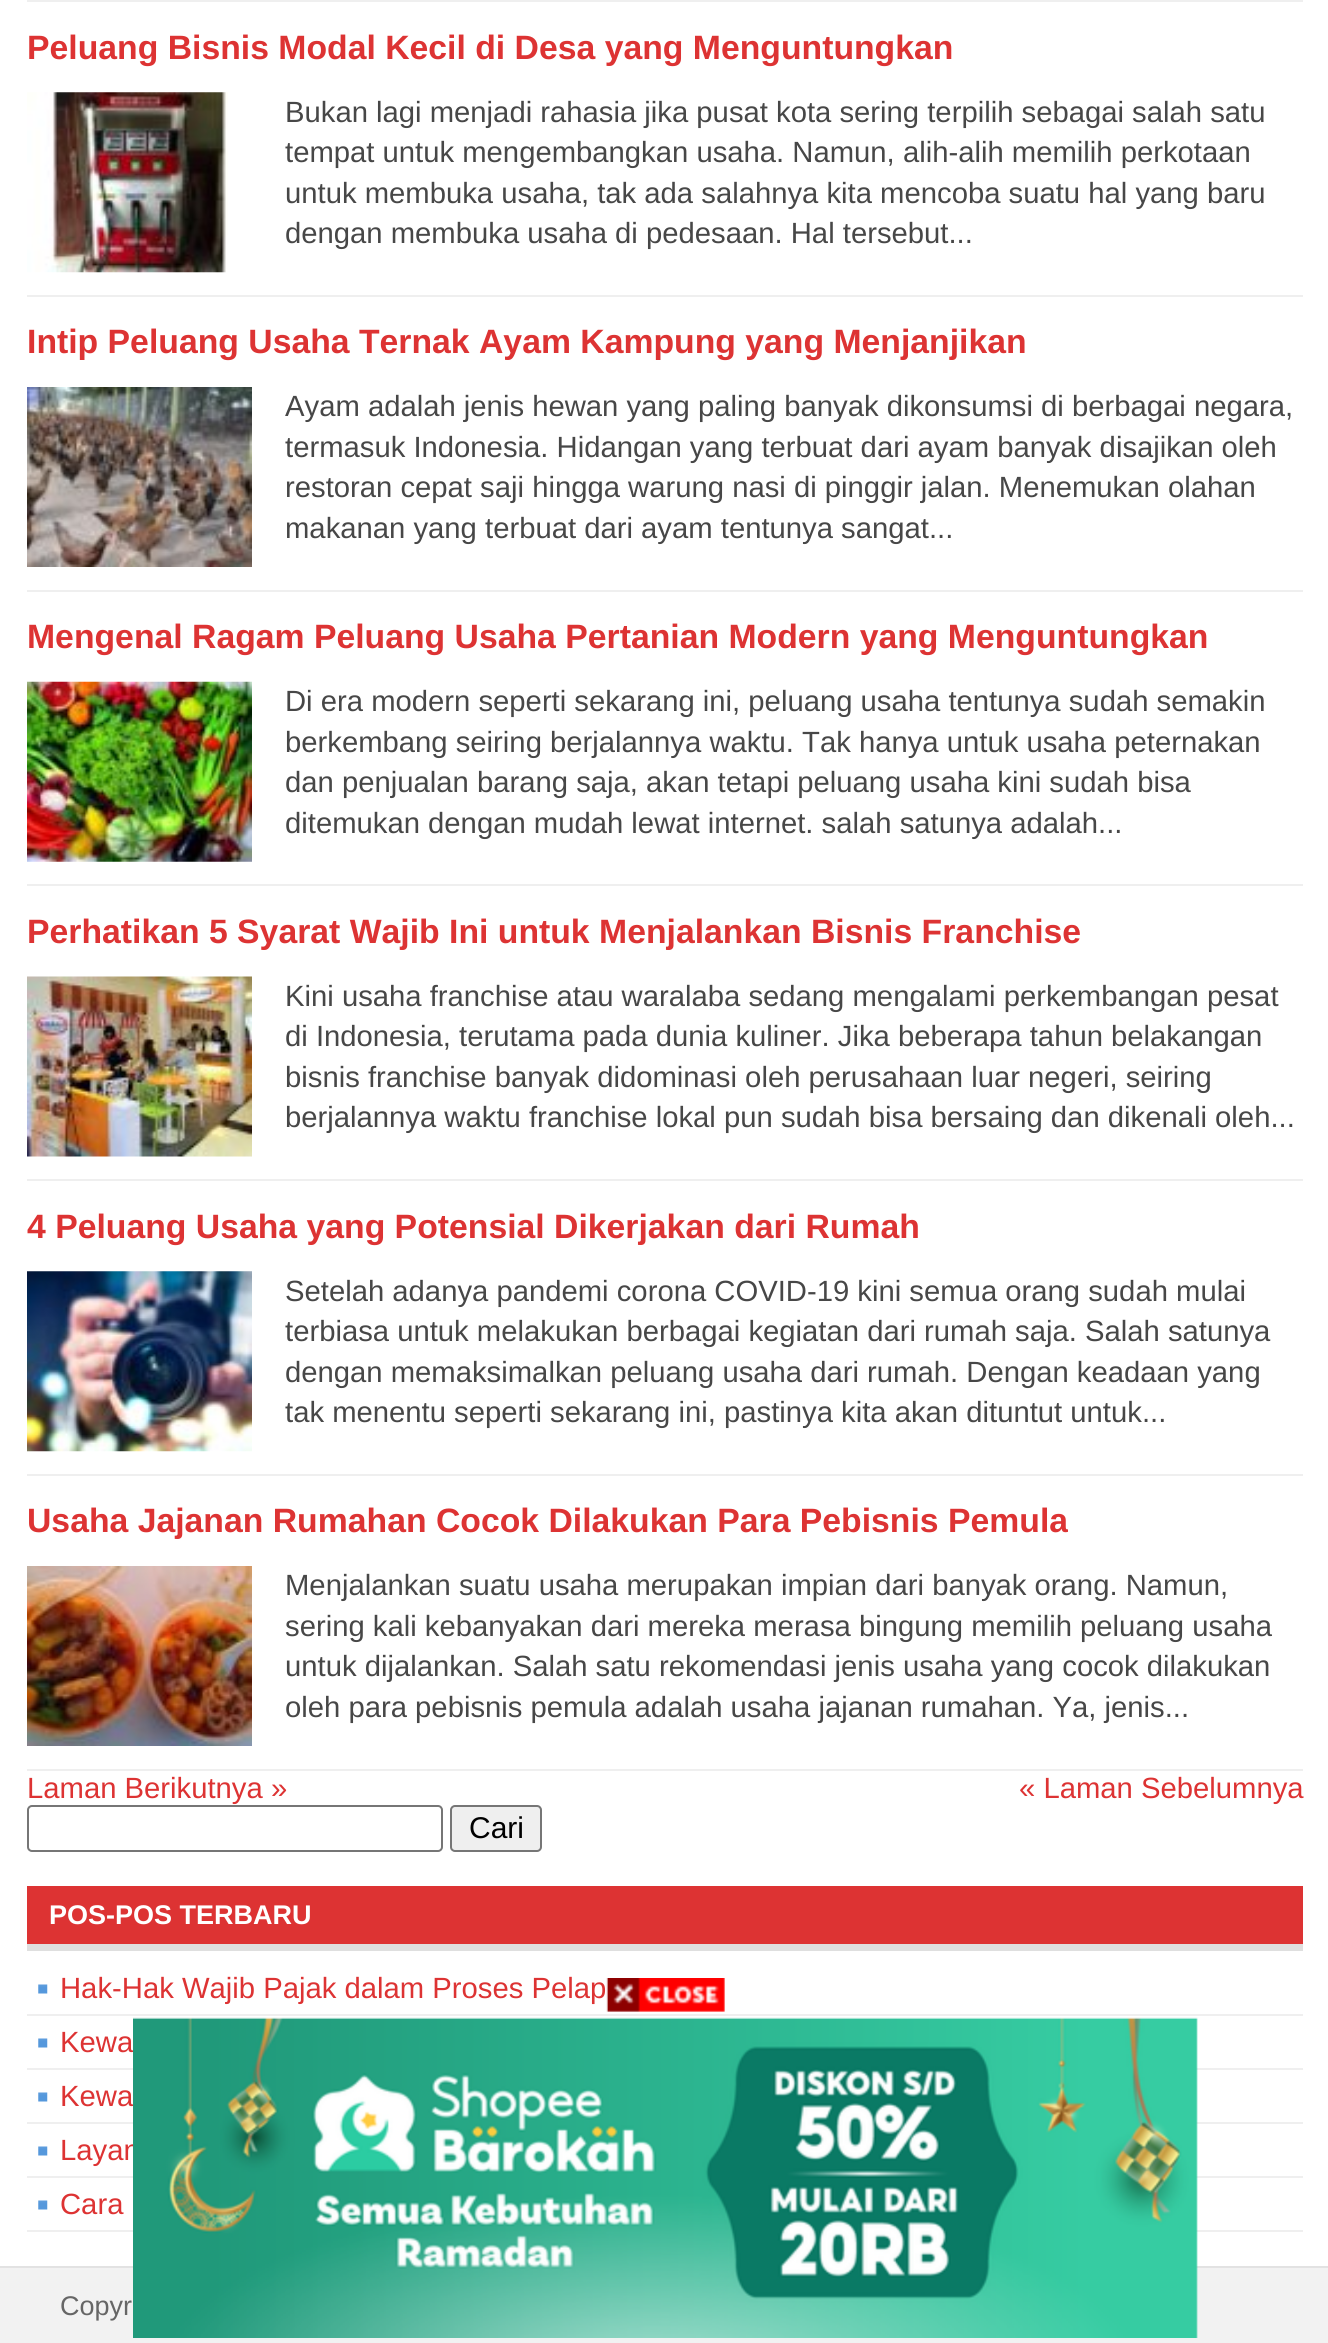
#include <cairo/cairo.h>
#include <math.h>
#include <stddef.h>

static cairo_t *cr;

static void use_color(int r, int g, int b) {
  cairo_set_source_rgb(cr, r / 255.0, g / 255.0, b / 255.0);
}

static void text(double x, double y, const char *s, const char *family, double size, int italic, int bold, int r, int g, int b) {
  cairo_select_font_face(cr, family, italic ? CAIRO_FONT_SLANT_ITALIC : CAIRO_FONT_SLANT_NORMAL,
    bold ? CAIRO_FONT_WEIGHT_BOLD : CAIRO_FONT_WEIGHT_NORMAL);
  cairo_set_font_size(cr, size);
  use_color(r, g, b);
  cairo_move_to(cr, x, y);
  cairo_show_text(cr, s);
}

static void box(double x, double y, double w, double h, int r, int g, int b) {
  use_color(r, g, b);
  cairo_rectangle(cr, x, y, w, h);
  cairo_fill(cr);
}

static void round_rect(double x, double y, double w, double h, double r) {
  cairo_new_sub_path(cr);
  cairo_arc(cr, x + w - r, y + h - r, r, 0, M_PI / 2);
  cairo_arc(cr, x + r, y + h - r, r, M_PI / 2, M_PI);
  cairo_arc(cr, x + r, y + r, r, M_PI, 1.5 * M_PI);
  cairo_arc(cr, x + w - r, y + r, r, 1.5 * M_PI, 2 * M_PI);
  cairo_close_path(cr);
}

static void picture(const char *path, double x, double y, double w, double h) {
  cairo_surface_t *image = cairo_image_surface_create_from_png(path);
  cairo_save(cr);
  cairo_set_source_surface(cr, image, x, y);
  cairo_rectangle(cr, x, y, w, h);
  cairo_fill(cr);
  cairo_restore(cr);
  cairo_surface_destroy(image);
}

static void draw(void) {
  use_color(255, 255, 255);
  cairo_paint(cr);
  box(27, 0, 1276, 2, 239, 239, 239);
  box(27, 295, 1276, 2, 239, 239, 239);
  picture("img_01.png", 27, 92, 201, 181);
  box(27, 590, 1276, 2, 239, 239, 239);
  picture("img_02.png", 27, 387, 225, 180);
  box(27, 884, 1276, 2, 239, 239, 239);
  picture("img_03.png", 27, 681, 225, 181);
  box(27, 1179, 1276, 2, 239, 239, 239);
  picture("img_04.png", 27, 976, 225, 181);
  box(27, 1474, 1276, 2, 239, 239, 239);
  picture("img_05.png", 27, 1271, 225, 181);
  box(27, 1769, 1276, 2, 239, 239, 239);
  picture("img_06.png", 27, 1566, 225, 180);
  round_rect(28, 1806, 414, 45, 4);
  use_color(118, 118, 118);
  cairo_stroke(cr);
  use_color(239, 239, 239);
  round_rect(451, 1806, 90, 45, 4);
  cairo_fill_preserve(cr);
  use_color(118, 118, 118);
  cairo_stroke(cr);
  box(27, 1886, 1276, 58, 221, 51, 51);
  box(27, 1944, 1276, 7, 223, 223, 223);
  picture("img_07.png", 38, 1984, 10, 10);
  box(27, 2014, 1276, 2, 239, 239, 239);
  picture("img_07.png", 38, 2038, 10, 10);
  box(27, 2068, 1276, 2, 239, 239, 239);
  picture("img_07.png", 38, 2092, 10, 10);
  box(27, 2122, 1276, 2, 239, 239, 239);
  picture("img_07.png", 38, 2146, 10, 10);
  box(27, 2176, 1276, 2, 239, 239, 239);
  picture("img_07.png", 38, 2200, 10, 10);
  box(27, 2230, 1276, 2, 239, 239, 239);
  box(0, 2268, 1328, 75, 242, 242, 242);
  box(0, 2266, 1328, 2, 226, 226, 226);
  picture("img_08.png", 606, 1978, 119, 34);
  text(27, 59, "Peluang Bisnis Modal Kecil di Desa yang Menguntungkan", "Liberation Sans", 33.75, 0, 1, 221, 51, 51);
  text(285, 122, "Bukan lagi menjadi rahasia jika pusat kota sering terpilih sebagai salah satu", "Liberation Sans", 29.25, 0, 0, 71, 71, 71);
  text(285, 162, "tempat untuk mengembangkan usaha. Namun, alih-alih memilih perkotaan", "Liberation Sans", 29.25, 0, 0, 71, 71, 71);
  text(285, 203, "untuk membuka usaha, tak ada salahnya kita mencoba suatu hal yang baru", "Liberation Sans", 29.25, 0, 0, 71, 71, 71);
  text(285, 243, "dengan membuka usaha di pedesaan. Hal tersebut...", "Liberation Sans", 29.25, 0, 0, 71, 71, 71);
  text(27, 353, "Intip Peluang Usaha Ternak Ayam Kampung yang Menjanjikan", "Liberation Sans", 33.75, 0, 1, 221, 51, 51);
  text(285, 416, "Ayam adalah jenis hewan yang paling banyak dikonsumsi di berbagai negara,", "Liberation Sans", 29.25, 0, 0, 71, 71, 71);
  text(285, 457, "termasuk Indonesia. Hidangan yang terbuat dari ayam banyak disajikan oleh", "Liberation Sans", 29.25, 0, 0, 71, 71, 71);
  text(285, 497, "restoran cepat saji hingga warung nasi di pinggir jalan. Menemukan olahan", "Liberation Sans", 29.25, 0, 0, 71, 71, 71);
  text(285, 538, "makanan yang terbuat dari ayam tentunya sangat...", "Liberation Sans", 29.25, 0, 0, 71, 71, 71);
  text(27, 648, "Mengenal Ragam Peluang Usaha Pertanian Modern yang Menguntungkan", "Liberation Sans", 33.75, 0, 1, 221, 51, 51);
  text(285, 711, "Di era modern seperti sekarang ini, peluang usaha tentunya sudah semakin", "Liberation Sans", 29.25, 0, 0, 71, 71, 71);
  text(285, 752, "berkembang seiring berjalannya waktu. Tak hanya untuk usaha peternakan", "Liberation Sans", 29.25, 0, 0, 71, 71, 71);
  text(285, 792, "dan penjualan barang saja, akan tetapi peluang usaha kini sudah bisa", "Liberation Sans", 29.25, 0, 0, 71, 71, 71);
  text(285, 833, "ditemukan dengan mudah lewat internet. salah satunya adalah...", "Liberation Sans", 29.25, 0, 0, 71, 71, 71);
  text(27, 943, "Perhatikan 5 Syarat Wajib Ini untuk Menjalankan Bisnis Franchise", "Liberation Sans", 33.75, 0, 1, 221, 51, 51);
  text(285, 1006, "Kini usaha franchise atau waralaba sedang mengalami perkembangan pesat", "Liberation Sans", 29.25, 0, 0, 71, 71, 71);
  text(285, 1046, "di Indonesia, terutama pada dunia kuliner. Jika beberapa tahun belakangan", "Liberation Sans", 29.25, 0, 0, 71, 71, 71);
  text(285, 1087, "bisnis franchise banyak didominasi oleh perusahaan luar negeri, seiring", "Liberation Sans", 29.25, 0, 0, 71, 71, 71);
  text(285, 1127, "berjalannya waktu franchise lokal pun sudah bisa bersaing dan dikenali oleh...", "Liberation Sans", 29.25, 0, 0, 71, 71, 71);
  text(27, 1238, "4 Peluang Usaha yang Potensial Dikerjakan dari Rumah", "Liberation Sans", 33.75, 0, 1, 221, 51, 51);
  text(285, 1301, "Setelah adanya pandemi corona COVID-19 kini semua orang sudah mulai", "Liberation Sans", 29.25, 0, 0, 71, 71, 71);
  text(285, 1341, "terbiasa untuk melakukan berbagai kegiatan dari rumah saja. Salah satunya", "Liberation Sans", 29.25, 0, 0, 71, 71, 71);
  text(285, 1382, "dengan memaksimalkan peluang usaha dari rumah. Dengan keadaan yang", "Liberation Sans", 29.25, 0, 0, 71, 71, 71);
  text(285, 1422, "tak menentu seperti sekarang ini, pastinya kita akan dituntut untuk...", "Liberation Sans", 29.25, 0, 0, 71, 71, 71);
  text(27, 1532, "Usaha Jajanan Rumahan Cocok Dilakukan Para Pebisnis Pemula", "Liberation Sans", 33.75, 0, 1, 221, 51, 51);
  text(285, 1595, "Menjalankan suatu usaha merupakan impian dari banyak orang. Namun,", "Liberation Sans", 29.25, 0, 0, 71, 71, 71);
  text(285, 1636, "sering kali kebanyakan dari mereka merasa bingung memilih peluang usaha", "Liberation Sans", 29.25, 0, 0, 71, 71, 71);
  text(285, 1676, "untuk dijalankan. Salah satu rekomendasi jenis usaha yang cocok dilakukan", "Liberation Sans", 29.25, 0, 0, 71, 71, 71);
  text(285, 1717, "oleh para pebisnis pemula adalah usaha jajanan rumahan. Ya, jenis...", "Liberation Sans", 29.25, 0, 0, 71, 71, 71);
  text(27, 1798, "Laman Berikutnya »", "Liberation Sans", 29.25, 0, 0, 221, 51, 51);
  text(1019, 1798, "« Laman Sebelumnya", "Liberation Sans", 29.25, 0, 0, 221, 51, 51);
  text(469, 1838, "Cari", "Liberation Sans", 30, 0, 0, 0, 0, 0);
  text(49, 1924, "POS-POS TERBARU", "Liberation Sans", 27, 0, 1, 255, 255, 255);
  text(60, 1998, "Hak-Hak Wajib Pajak dalam Proses Pelap", "Liberation Sans", 29.25, 0, 0, 221, 51, 51);
  text(60, 2052, "Kewa", "Liberation Sans", 29.25, 0, 0, 221, 51, 51);
  text(60, 2106, "Kewa", "Liberation Sans", 29.25, 0, 0, 221, 51, 51);
  text(60, 2160, "Layan", "Liberation Sans", 29.25, 0, 0, 221, 51, 51);
  text(60, 2214, "Cara", "Liberation Sans", 29.25, 0, 0, 221, 51, 51);
  text(60, 2315, "Copyr", "Liberation Sans", 27, 0, 0, 102, 102, 102);
  picture("img_09.png", 133, 2017, 1065, 321);
}

int main(void) {
  cairo_surface_t *surface = cairo_image_surface_create(CAIRO_FORMAT_RGB24, 1328, 2343);
  cr = cairo_create(surface);
  cairo_font_options_t *options = cairo_font_options_create();
  cairo_font_options_set_hint_metrics(options, CAIRO_HINT_METRICS_OFF);
  cairo_font_options_set_hint_style(options, CAIRO_HINT_STYLE_NONE);
  cairo_set_font_options(cr, options);
  cairo_set_miter_limit(cr, 4);
  draw();
  cairo_surface_write_to_png(surface, "out.png");
  cairo_font_options_destroy(options);
  cairo_destroy(cr);
  cairo_surface_destroy(surface);
  return 0;
}
